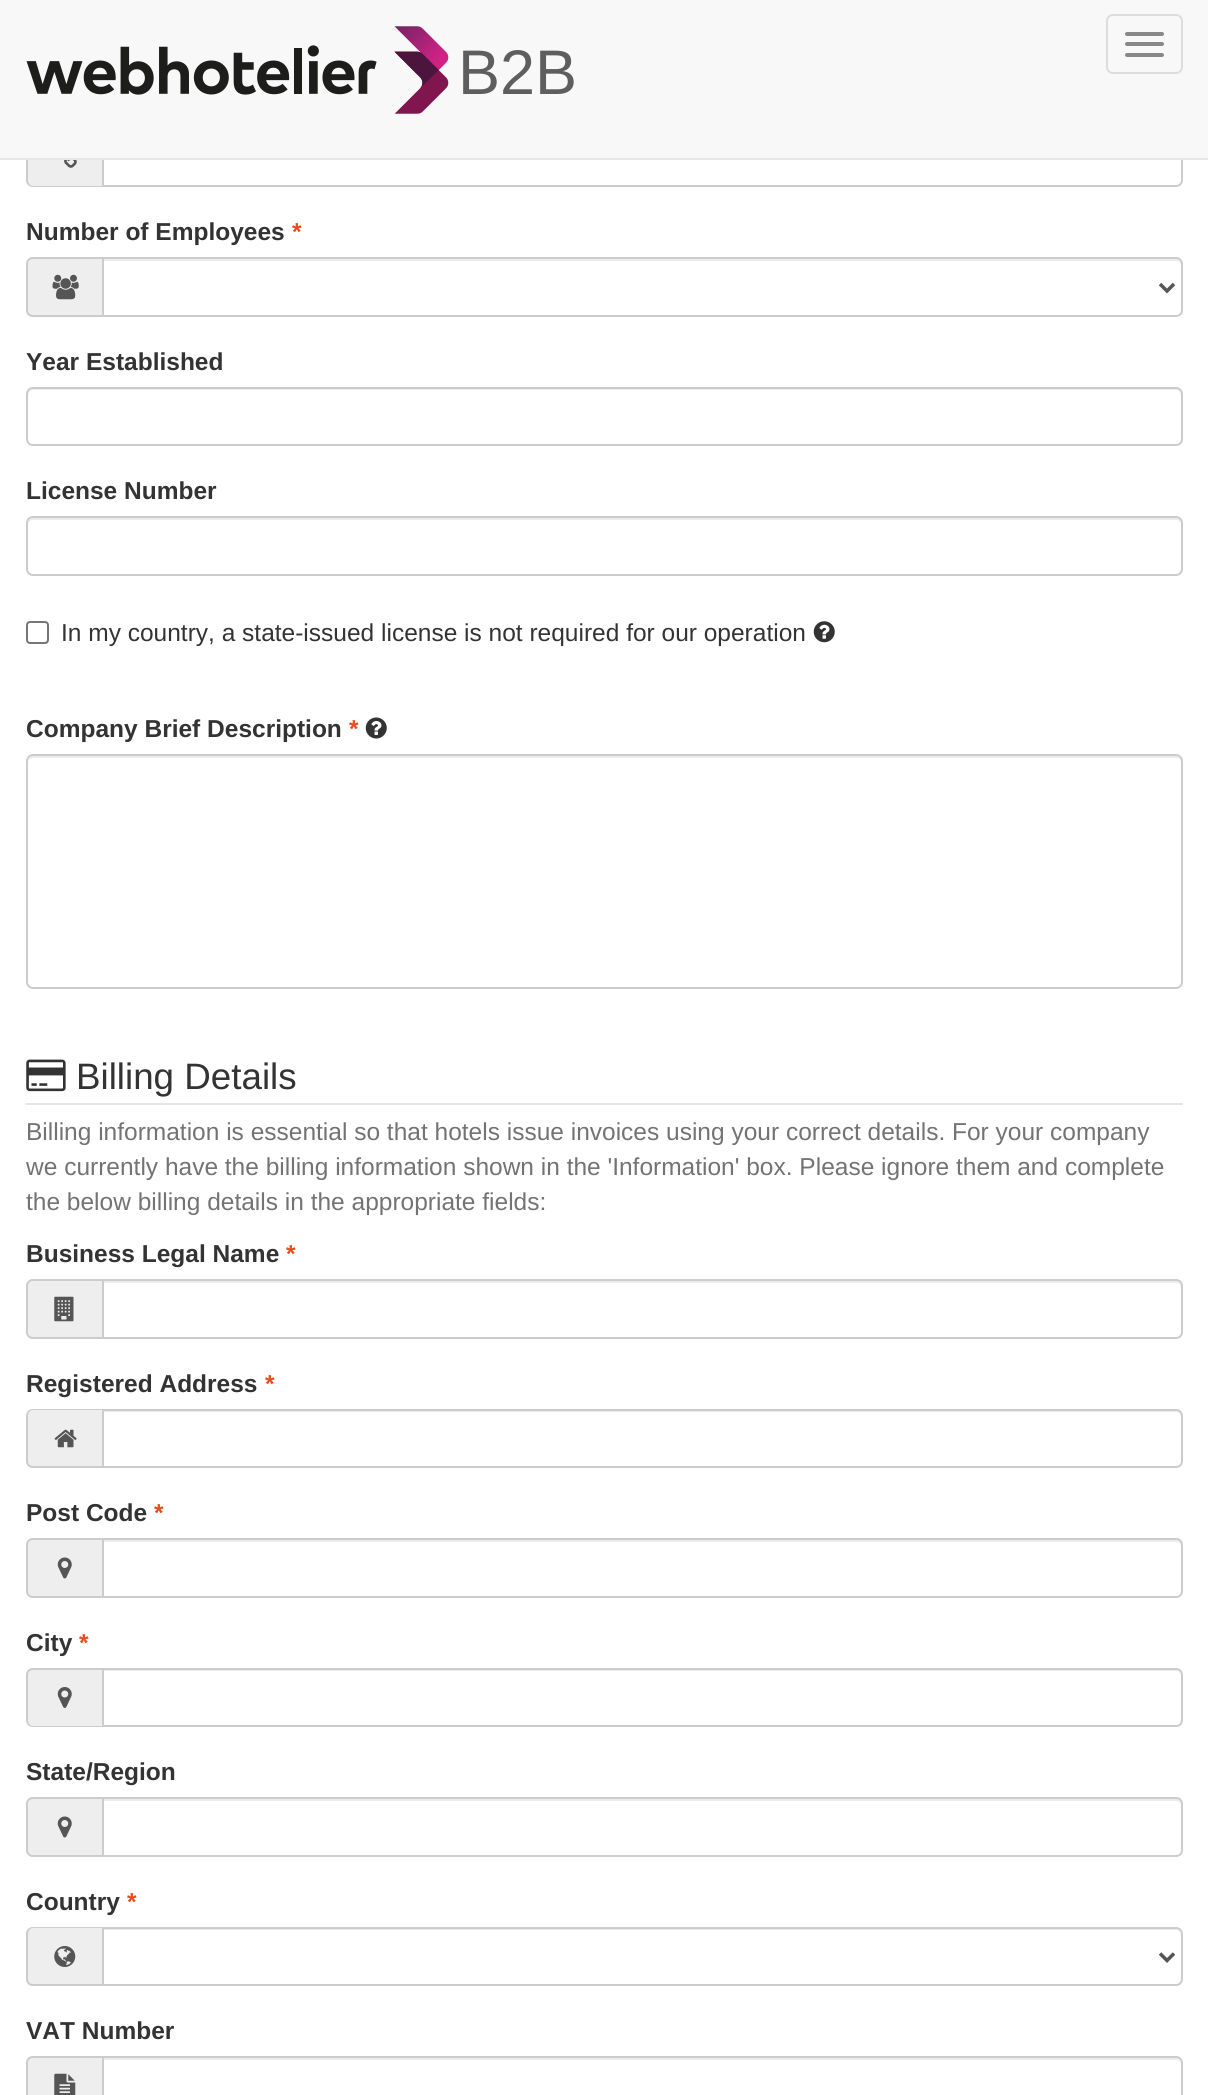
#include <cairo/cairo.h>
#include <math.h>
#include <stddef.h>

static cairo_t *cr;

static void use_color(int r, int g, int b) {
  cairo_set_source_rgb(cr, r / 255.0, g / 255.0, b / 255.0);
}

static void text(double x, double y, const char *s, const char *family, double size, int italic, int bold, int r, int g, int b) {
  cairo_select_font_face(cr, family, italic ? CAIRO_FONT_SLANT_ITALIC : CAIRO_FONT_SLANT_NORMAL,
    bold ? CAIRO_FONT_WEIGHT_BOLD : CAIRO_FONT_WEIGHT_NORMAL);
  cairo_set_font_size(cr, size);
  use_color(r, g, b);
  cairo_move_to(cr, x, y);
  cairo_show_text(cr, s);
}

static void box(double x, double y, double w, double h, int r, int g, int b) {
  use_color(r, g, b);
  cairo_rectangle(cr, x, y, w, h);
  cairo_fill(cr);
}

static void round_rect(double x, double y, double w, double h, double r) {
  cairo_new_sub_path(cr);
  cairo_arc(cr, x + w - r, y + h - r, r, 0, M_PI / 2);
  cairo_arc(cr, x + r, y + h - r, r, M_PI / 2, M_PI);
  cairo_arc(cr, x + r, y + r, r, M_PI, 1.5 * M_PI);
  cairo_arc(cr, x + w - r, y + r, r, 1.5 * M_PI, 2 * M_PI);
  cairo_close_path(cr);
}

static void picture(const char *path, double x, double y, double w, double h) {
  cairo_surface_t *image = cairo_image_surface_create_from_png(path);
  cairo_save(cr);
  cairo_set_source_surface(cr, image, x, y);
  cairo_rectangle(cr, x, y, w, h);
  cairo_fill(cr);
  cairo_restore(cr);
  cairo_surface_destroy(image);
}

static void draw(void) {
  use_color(255, 255, 255);
  cairo_paint(cr);
  use_color(238, 238, 238);
  cairo_new_path(cr);
  cairo_move_to(cr, 33, 128);
  cairo_line_to(cr, 102, 128);
  cairo_line_to(cr, 102, 187);
  cairo_line_to(cr, 33, 187);
  cairo_curve_to(cr, 29, 187, 26, 184, 26, 180);
  cairo_line_to(cr, 26, 135);
  cairo_curve_to(cr, 26, 131, 29, 128, 33, 128);
  cairo_close_path(cr);
  cairo_fill(cr);
  use_color(204, 204, 204);
  cairo_set_fill_rule(cr, CAIRO_FILL_RULE_EVEN_ODD);
  cairo_new_path(cr);
  cairo_move_to(cr, 33, 128);
  cairo_line_to(cr, 102, 128);
  cairo_line_to(cr, 102, 187);
  cairo_line_to(cr, 33, 187);
  cairo_curve_to(cr, 29, 187, 26, 184, 26, 180);
  cairo_line_to(cr, 26, 135);
  cairo_curve_to(cr, 26, 131, 29, 128, 33, 128);
  cairo_close_path(cr);
  cairo_move_to(cr, 33, 130);
  cairo_line_to(cr, 102, 130);
  cairo_line_to(cr, 102, 186);
  cairo_line_to(cr, 33, 186);
  cairo_curve_to(cr, 30, 186, 28, 183, 28, 180);
  cairo_line_to(cr, 28, 135);
  cairo_curve_to(cr, 28, 132, 30, 130, 33, 130);
  cairo_close_path(cr);
  cairo_fill(cr);
  cairo_new_path(cr);
  cairo_move_to(cr, 103, 129);
  cairo_line_to(cr, 1176, 129);
  cairo_curve_to(cr, 1179.5, 129, 1182, 131.5, 1182, 135);
  cairo_line_to(cr, 1182, 180);
  cairo_curve_to(cr, 1182, 183.5, 1179.5, 186, 1176, 186);
  cairo_line_to(cr, 103, 186);
  cairo_close_path(cr);
  cairo_stroke(cr);
  box(0, 0, 1208, 158, 248, 248, 248);
  box(0, 158, 1208, 2, 231, 231, 231);
  picture("img_01.png", 26, 26, 423, 88);
  round_rect(1107, 15, 75, 58, 6);
  use_color(221, 221, 221);
  cairo_stroke(cr);
  use_color(136, 136, 136);
  round_rect(1125, 32, 39, 4, 2);
  cairo_fill(cr);
  round_rect(1125, 42, 39, 4, 2);
  cairo_fill(cr);
  round_rect(1125, 53, 39, 4, 2);
  cairo_fill(cr);
  picture("img_02.png", 64, 160, 13, 8);
  use_color(238, 238, 238);
  cairo_new_path(cr);
  cairo_move_to(cr, 33, 257);
  cairo_line_to(cr, 102, 257);
  cairo_line_to(cr, 102, 317);
  cairo_line_to(cr, 33, 317);
  cairo_curve_to(cr, 29, 317, 26, 314, 26, 310);
  cairo_line_to(cr, 26, 264);
  cairo_curve_to(cr, 26, 260, 29, 257, 33, 257);
  cairo_close_path(cr);
  cairo_fill(cr);
  use_color(204, 204, 204);
  cairo_new_path(cr);
  cairo_move_to(cr, 33, 257);
  cairo_line_to(cr, 102, 257);
  cairo_line_to(cr, 102, 317);
  cairo_line_to(cr, 33, 317);
  cairo_curve_to(cr, 29, 317, 26, 314, 26, 310);
  cairo_line_to(cr, 26, 264);
  cairo_curve_to(cr, 26, 260, 29, 257, 33, 257);
  cairo_close_path(cr);
  cairo_move_to(cr, 33, 259);
  cairo_line_to(cr, 102, 259);
  cairo_line_to(cr, 102, 315);
  cairo_line_to(cr, 33, 315);
  cairo_curve_to(cr, 30, 315, 28, 313, 28, 310);
  cairo_line_to(cr, 28, 264);
  cairo_curve_to(cr, 28, 261, 30, 259, 33, 259);
  cairo_close_path(cr);
  cairo_fill(cr);
  picture("img_03.png", 52, 274, 27, 26);
  use_color(236, 236, 236);
  cairo_set_fill_rule(cr, CAIRO_FILL_RULE_WINDING);
  cairo_new_path(cr);
  cairo_move_to(cr, 103, 261);
  cairo_line_to(cr, 1176, 261);
  cairo_curve_to(cr, 1179, 261, 1181, 263, 1181, 266);
  cairo_line_to(cr, 1181, 264);
  cairo_curve_to(cr, 1181, 261, 1179, 259, 1176, 259);
  cairo_line_to(cr, 103, 259);
  cairo_close_path(cr);
  cairo_fill(cr);
  cairo_new_path(cr);
  cairo_move_to(cr, 103, 258);
  cairo_line_to(cr, 1176, 258);
  cairo_curve_to(cr, 1179.5, 258, 1182, 260.5, 1182, 264);
  cairo_line_to(cr, 1182, 310);
  cairo_curve_to(cr, 1182, 313.5, 1179.5, 316, 1176, 316);
  cairo_line_to(cr, 103, 316);
  cairo_close_path(cr);
  use_color(204, 204, 204);
  cairo_stroke(cr);
  cairo_new_path(cr);
  cairo_move_to(cr, 1160, 284);
  cairo_line_to(cr, 1167, 291);
  cairo_line_to(cr, 1174, 284);
  use_color(85, 85, 85);
  cairo_set_line_width(cr, 3.5);
  cairo_stroke(cr);
  use_color(236, 236, 236);
  cairo_new_path(cr);
  cairo_move_to(cr, 33, 390);
  cairo_line_to(cr, 1176, 390);
  cairo_curve_to(cr, 1179, 390, 1181, 393, 1181, 396);
  cairo_line_to(cr, 1181, 394);
  cairo_curve_to(cr, 1181, 391, 1179, 389, 1176, 389);
  cairo_line_to(cr, 33, 389);
  cairo_curve_to(cr, 30, 389, 28, 391, 28, 394);
  cairo_line_to(cr, 28, 396);
  cairo_curve_to(cr, 28, 393, 30, 390, 33, 390);
  cairo_close_path(cr);
  cairo_fill(cr);
  round_rect(27, 388, 1155, 57, 6);
  use_color(204, 204, 204);
  cairo_set_line_width(cr, 2);
  cairo_stroke(cr);
  use_color(236, 236, 236);
  cairo_new_path(cr);
  cairo_move_to(cr, 33, 520);
  cairo_line_to(cr, 1176, 520);
  cairo_curve_to(cr, 1179, 520, 1181, 522, 1181, 525);
  cairo_line_to(cr, 1181, 523);
  cairo_curve_to(cr, 1181, 520, 1179, 518, 1176, 518);
  cairo_line_to(cr, 33, 518);
  cairo_curve_to(cr, 30, 518, 28, 520, 28, 523);
  cairo_line_to(cr, 28, 525);
  cairo_curve_to(cr, 28, 522, 30, 520, 33, 520);
  cairo_close_path(cr);
  cairo_fill(cr);
  round_rect(27, 517, 1155, 58, 6);
  use_color(204, 204, 204);
  cairo_stroke(cr);
  round_rect(27, 622, 21, 21, 3);
  use_color(118, 118, 118);
  cairo_stroke(cr);
  picture("img_04.png", 813, 621, 22, 22);
  picture("img_05.png", 365, 717, 22, 22);
  use_color(236, 236, 236);
  cairo_new_path(cr);
  cairo_move_to(cr, 33, 758);
  cairo_line_to(cr, 1176, 758);
  cairo_curve_to(cr, 1179, 758, 1181, 760, 1181, 763);
  cairo_line_to(cr, 1181, 761);
  cairo_curve_to(cr, 1181, 758, 1179, 756, 1176, 756);
  cairo_line_to(cr, 33, 756);
  cairo_curve_to(cr, 30, 756, 28, 758, 28, 761);
  cairo_line_to(cr, 28, 763);
  cairo_curve_to(cr, 28, 760, 30, 758, 33, 758);
  cairo_close_path(cr);
  cairo_fill(cr);
  round_rect(27, 755, 1155, 233, 6);
  use_color(204, 204, 204);
  cairo_stroke(cr);
  box(26, 1103, 1157, 2, 229, 229, 229);
  picture("img_06.png", 26, 1059, 40, 33);
  use_color(238, 238, 238);
  cairo_new_path(cr);
  cairo_move_to(cr, 33, 1279);
  cairo_line_to(cr, 102, 1279);
  cairo_line_to(cr, 102, 1339);
  cairo_line_to(cr, 33, 1339);
  cairo_curve_to(cr, 29, 1339, 26, 1336, 26, 1332);
  cairo_line_to(cr, 26, 1286);
  cairo_curve_to(cr, 26, 1282, 29, 1279, 33, 1279);
  cairo_close_path(cr);
  cairo_fill(cr);
  use_color(204, 204, 204);
  cairo_set_fill_rule(cr, CAIRO_FILL_RULE_EVEN_ODD);
  cairo_new_path(cr);
  cairo_move_to(cr, 33, 1279);
  cairo_line_to(cr, 102, 1279);
  cairo_line_to(cr, 102, 1339);
  cairo_line_to(cr, 33, 1339);
  cairo_curve_to(cr, 29, 1339, 26, 1336, 26, 1332);
  cairo_line_to(cr, 26, 1286);
  cairo_curve_to(cr, 26, 1282, 29, 1279, 33, 1279);
  cairo_close_path(cr);
  cairo_move_to(cr, 33, 1281);
  cairo_line_to(cr, 102, 1281);
  cairo_line_to(cr, 102, 1337);
  cairo_line_to(cr, 33, 1337);
  cairo_curve_to(cr, 30, 1337, 28, 1335, 28, 1332);
  cairo_line_to(cr, 28, 1286);
  cairo_curve_to(cr, 28, 1283, 30, 1281, 33, 1281);
  cairo_close_path(cr);
  cairo_fill(cr);
  picture("img_07.png", 54, 1296, 20, 26);
  use_color(236, 236, 236);
  cairo_set_fill_rule(cr, CAIRO_FILL_RULE_WINDING);
  cairo_new_path(cr);
  cairo_move_to(cr, 103, 1283);
  cairo_line_to(cr, 1176, 1283);
  cairo_curve_to(cr, 1179, 1283, 1181, 1285, 1181, 1288);
  cairo_line_to(cr, 1181, 1286);
  cairo_curve_to(cr, 1181, 1283, 1179, 1281, 1176, 1281);
  cairo_line_to(cr, 103, 1281);
  cairo_close_path(cr);
  cairo_fill(cr);
  cairo_new_path(cr);
  cairo_move_to(cr, 103, 1280);
  cairo_line_to(cr, 1176, 1280);
  cairo_curve_to(cr, 1179.5, 1280, 1182, 1282.5, 1182, 1286);
  cairo_line_to(cr, 1182, 1332);
  cairo_curve_to(cr, 1182, 1335.5, 1179.5, 1338, 1176, 1338);
  cairo_line_to(cr, 103, 1338);
  cairo_close_path(cr);
  use_color(204, 204, 204);
  cairo_stroke(cr);
  use_color(238, 238, 238);
  cairo_new_path(cr);
  cairo_move_to(cr, 33, 1409);
  cairo_line_to(cr, 102, 1409);
  cairo_line_to(cr, 102, 1468);
  cairo_line_to(cr, 33, 1468);
  cairo_curve_to(cr, 29, 1468, 26, 1465, 26, 1461);
  cairo_line_to(cr, 26, 1416);
  cairo_curve_to(cr, 26, 1412, 29, 1409, 33, 1409);
  cairo_close_path(cr);
  cairo_fill(cr);
  use_color(204, 204, 204);
  cairo_set_fill_rule(cr, CAIRO_FILL_RULE_EVEN_ODD);
  cairo_new_path(cr);
  cairo_move_to(cr, 33, 1409);
  cairo_line_to(cr, 102, 1409);
  cairo_line_to(cr, 102, 1468);
  cairo_line_to(cr, 33, 1468);
  cairo_curve_to(cr, 29, 1468, 26, 1465, 26, 1461);
  cairo_line_to(cr, 26, 1416);
  cairo_curve_to(cr, 26, 1412, 29, 1409, 33, 1409);
  cairo_close_path(cr);
  cairo_move_to(cr, 33, 1410);
  cairo_line_to(cr, 102, 1410);
  cairo_line_to(cr, 102, 1466);
  cairo_line_to(cr, 33, 1466);
  cairo_curve_to(cr, 30, 1466, 28, 1464, 28, 1461);
  cairo_line_to(cr, 28, 1416);
  cairo_curve_to(cr, 28, 1413, 30, 1410, 33, 1410);
  cairo_close_path(cr);
  cairo_fill(cr);
  picture("img_08.png", 54, 1429, 23, 19);
  use_color(236, 236, 236);
  cairo_set_fill_rule(cr, CAIRO_FILL_RULE_WINDING);
  cairo_new_path(cr);
  cairo_move_to(cr, 103, 1412);
  cairo_line_to(cr, 1176, 1412);
  cairo_curve_to(cr, 1179, 1412, 1181, 1415, 1181, 1418);
  cairo_line_to(cr, 1181, 1416);
  cairo_curve_to(cr, 1181, 1413, 1179, 1411, 1176, 1411);
  cairo_line_to(cr, 103, 1411);
  cairo_close_path(cr);
  cairo_fill(cr);
  cairo_new_path(cr);
  cairo_move_to(cr, 103, 1410);
  cairo_line_to(cr, 1176, 1410);
  cairo_curve_to(cr, 1179.5, 1410, 1182, 1412.5, 1182, 1416);
  cairo_line_to(cr, 1182, 1461);
  cairo_curve_to(cr, 1182, 1464.5, 1179.5, 1467, 1176, 1467);
  cairo_line_to(cr, 103, 1467);
  cairo_close_path(cr);
  use_color(204, 204, 204);
  cairo_stroke(cr);
  use_color(238, 238, 238);
  cairo_new_path(cr);
  cairo_move_to(cr, 33, 1538);
  cairo_line_to(cr, 102, 1538);
  cairo_line_to(cr, 102, 1598);
  cairo_line_to(cr, 33, 1598);
  cairo_curve_to(cr, 29, 1598, 26, 1595, 26, 1591);
  cairo_line_to(cr, 26, 1545);
  cairo_curve_to(cr, 26, 1541, 29, 1538, 33, 1538);
  cairo_close_path(cr);
  cairo_fill(cr);
  use_color(204, 204, 204);
  cairo_set_fill_rule(cr, CAIRO_FILL_RULE_EVEN_ODD);
  cairo_new_path(cr);
  cairo_move_to(cr, 33, 1538);
  cairo_line_to(cr, 102, 1538);
  cairo_line_to(cr, 102, 1598);
  cairo_line_to(cr, 33, 1598);
  cairo_curve_to(cr, 29, 1598, 26, 1595, 26, 1591);
  cairo_line_to(cr, 26, 1545);
  cairo_curve_to(cr, 26, 1541, 29, 1538, 33, 1538);
  cairo_close_path(cr);
  cairo_move_to(cr, 33, 1540);
  cairo_line_to(cr, 102, 1540);
  cairo_line_to(cr, 102, 1596);
  cairo_line_to(cr, 33, 1596);
  cairo_curve_to(cr, 30, 1596, 28, 1594, 28, 1591);
  cairo_line_to(cr, 28, 1545);
  cairo_curve_to(cr, 28, 1542, 30, 1540, 33, 1540);
  cairo_close_path(cr);
  cairo_fill(cr);
  picture("img_09.png", 57, 1557, 15, 22);
  use_color(236, 236, 236);
  cairo_set_fill_rule(cr, CAIRO_FILL_RULE_WINDING);
  cairo_new_path(cr);
  cairo_move_to(cr, 103, 1542);
  cairo_line_to(cr, 1176, 1542);
  cairo_curve_to(cr, 1179, 1542, 1181, 1544, 1181, 1547);
  cairo_line_to(cr, 1181, 1545);
  cairo_curve_to(cr, 1181, 1542, 1179, 1540, 1176, 1540);
  cairo_line_to(cr, 103, 1540);
  cairo_close_path(cr);
  cairo_fill(cr);
  cairo_new_path(cr);
  cairo_move_to(cr, 103, 1539);
  cairo_line_to(cr, 1176, 1539);
  cairo_curve_to(cr, 1179.5, 1539, 1182, 1541.5, 1182, 1545);
  cairo_line_to(cr, 1182, 1591);
  cairo_curve_to(cr, 1182, 1594.5, 1179.5, 1597, 1176, 1597);
  cairo_line_to(cr, 103, 1597);
  cairo_close_path(cr);
  use_color(204, 204, 204);
  cairo_stroke(cr);
  use_color(238, 238, 238);
  cairo_new_path(cr);
  cairo_move_to(cr, 33, 1668);
  cairo_line_to(cr, 102, 1668);
  cairo_line_to(cr, 102, 1727);
  cairo_line_to(cr, 33, 1727);
  cairo_curve_to(cr, 29, 1727, 26, 1724, 26, 1720);
  cairo_line_to(cr, 26, 1675);
  cairo_curve_to(cr, 26, 1671, 29, 1668, 33, 1668);
  cairo_close_path(cr);
  cairo_fill(cr);
  use_color(204, 204, 204);
  cairo_set_fill_rule(cr, CAIRO_FILL_RULE_EVEN_ODD);
  cairo_new_path(cr);
  cairo_move_to(cr, 33, 1668);
  cairo_line_to(cr, 102, 1668);
  cairo_line_to(cr, 102, 1727);
  cairo_line_to(cr, 33, 1727);
  cairo_curve_to(cr, 29, 1727, 26, 1724, 26, 1720);
  cairo_line_to(cr, 26, 1675);
  cairo_curve_to(cr, 26, 1671, 29, 1668, 33, 1668);
  cairo_close_path(cr);
  cairo_move_to(cr, 33, 1670);
  cairo_line_to(cr, 102, 1670);
  cairo_line_to(cr, 102, 1726);
  cairo_line_to(cr, 33, 1726);
  cairo_curve_to(cr, 30, 1726, 28, 1723, 28, 1720);
  cairo_line_to(cr, 28, 1675);
  cairo_curve_to(cr, 28, 1672, 30, 1670, 33, 1670);
  cairo_close_path(cr);
  cairo_fill(cr);
  picture("img_10.png", 57, 1687, 15, 21);
  use_color(236, 236, 236);
  cairo_set_fill_rule(cr, CAIRO_FILL_RULE_WINDING);
  cairo_new_path(cr);
  cairo_move_to(cr, 103, 1671);
  cairo_line_to(cr, 1176, 1671);
  cairo_curve_to(cr, 1179, 1671, 1181, 1674, 1181, 1676);
  cairo_curve_to(cr, 1181, 1673, 1179, 1670, 1176, 1670);
  cairo_line_to(cr, 103, 1670);
  cairo_close_path(cr);
  cairo_fill(cr);
  cairo_new_path(cr);
  cairo_move_to(cr, 103, 1669);
  cairo_line_to(cr, 1176, 1669);
  cairo_curve_to(cr, 1179.5, 1669, 1182, 1671.5, 1182, 1675);
  cairo_line_to(cr, 1182, 1720);
  cairo_curve_to(cr, 1182, 1723.5, 1179.5, 1726, 1176, 1726);
  cairo_line_to(cr, 103, 1726);
  cairo_close_path(cr);
  use_color(204, 204, 204);
  cairo_stroke(cr);
  use_color(238, 238, 238);
  cairo_new_path(cr);
  cairo_move_to(cr, 33, 1797);
  cairo_line_to(cr, 102, 1797);
  cairo_line_to(cr, 102, 1857);
  cairo_line_to(cr, 33, 1857);
  cairo_curve_to(cr, 29, 1857, 26, 1854, 26, 1850);
  cairo_line_to(cr, 26, 1804);
  cairo_curve_to(cr, 26, 1800, 29, 1797, 33, 1797);
  cairo_close_path(cr);
  cairo_fill(cr);
  use_color(204, 204, 204);
  cairo_set_fill_rule(cr, CAIRO_FILL_RULE_EVEN_ODD);
  cairo_new_path(cr);
  cairo_move_to(cr, 33, 1797);
  cairo_line_to(cr, 102, 1797);
  cairo_line_to(cr, 102, 1857);
  cairo_line_to(cr, 33, 1857);
  cairo_curve_to(cr, 29, 1857, 26, 1854, 26, 1850);
  cairo_line_to(cr, 26, 1804);
  cairo_curve_to(cr, 26, 1800, 29, 1797, 33, 1797);
  cairo_close_path(cr);
  cairo_move_to(cr, 33, 1799);
  cairo_line_to(cr, 102, 1799);
  cairo_line_to(cr, 102, 1855);
  cairo_line_to(cr, 33, 1855);
  cairo_curve_to(cr, 30, 1855, 28, 1853, 28, 1850);
  cairo_line_to(cr, 28, 1804);
  cairo_curve_to(cr, 28, 1801, 30, 1799, 33, 1799);
  cairo_close_path(cr);
  cairo_fill(cr);
  picture("img_09.png", 57, 1816, 15, 22);
  use_color(236, 236, 236);
  cairo_set_fill_rule(cr, CAIRO_FILL_RULE_WINDING);
  cairo_new_path(cr);
  cairo_move_to(cr, 103, 1801);
  cairo_line_to(cr, 1176, 1801);
  cairo_curve_to(cr, 1179, 1801, 1181, 1803, 1181, 1806);
  cairo_line_to(cr, 1181, 1804);
  cairo_curve_to(cr, 1181, 1801, 1179, 1799, 1176, 1799);
  cairo_line_to(cr, 103, 1799);
  cairo_close_path(cr);
  cairo_fill(cr);
  cairo_new_path(cr);
  cairo_move_to(cr, 103, 1798);
  cairo_line_to(cr, 1176, 1798);
  cairo_curve_to(cr, 1179.5, 1798, 1182, 1800.5, 1182, 1804);
  cairo_line_to(cr, 1182, 1850);
  cairo_curve_to(cr, 1182, 1853.5, 1179.5, 1856, 1176, 1856);
  cairo_line_to(cr, 103, 1856);
  cairo_close_path(cr);
  use_color(204, 204, 204);
  cairo_stroke(cr);
  use_color(238, 238, 238);
  cairo_new_path(cr);
  cairo_move_to(cr, 33, 1927);
  cairo_line_to(cr, 102, 1927);
  cairo_line_to(cr, 102, 1986);
  cairo_line_to(cr, 33, 1986);
  cairo_curve_to(cr, 29, 1986, 26, 1983, 26, 1979);
  cairo_line_to(cr, 26, 1934);
  cairo_curve_to(cr, 26, 1930, 29, 1927, 33, 1927);
  cairo_close_path(cr);
  cairo_fill(cr);
  use_color(204, 204, 204);
  cairo_set_fill_rule(cr, CAIRO_FILL_RULE_EVEN_ODD);
  cairo_new_path(cr);
  cairo_move_to(cr, 33, 1927);
  cairo_line_to(cr, 102, 1927);
  cairo_line_to(cr, 102, 1986);
  cairo_line_to(cr, 33, 1986);
  cairo_curve_to(cr, 29, 1986, 26, 1983, 26, 1979);
  cairo_line_to(cr, 26, 1934);
  cairo_curve_to(cr, 26, 1930, 29, 1927, 33, 1927);
  cairo_close_path(cr);
  cairo_move_to(cr, 33, 1928);
  cairo_line_to(cr, 102, 1928);
  cairo_line_to(cr, 102, 1984);
  cairo_line_to(cr, 33, 1984);
  cairo_curve_to(cr, 30, 1984, 28, 1982, 28, 1979);
  cairo_line_to(cr, 28, 1934);
  cairo_curve_to(cr, 28, 1931, 30, 1928, 33, 1928);
  cairo_close_path(cr);
  cairo_fill(cr);
  picture("img_11.png", 54, 1946, 22, 21);
  use_color(236, 236, 236);
  cairo_set_fill_rule(cr, CAIRO_FILL_RULE_WINDING);
  cairo_new_path(cr);
  cairo_move_to(cr, 103, 1930);
  cairo_line_to(cr, 1176, 1930);
  cairo_curve_to(cr, 1179, 1930, 1181, 1933, 1181, 1936);
  cairo_line_to(cr, 1181, 1934);
  cairo_curve_to(cr, 1181, 1931, 1179, 1929, 1176, 1929);
  cairo_line_to(cr, 103, 1929);
  cairo_close_path(cr);
  cairo_fill(cr);
  cairo_new_path(cr);
  cairo_move_to(cr, 103, 1928);
  cairo_line_to(cr, 1176, 1928);
  cairo_curve_to(cr, 1179.5, 1928, 1182, 1930.5, 1182, 1934);
  cairo_line_to(cr, 1182, 1979);
  cairo_curve_to(cr, 1182, 1982.5, 1179.5, 1985, 1176, 1985);
  cairo_line_to(cr, 103, 1985);
  cairo_close_path(cr);
  use_color(204, 204, 204);
  cairo_stroke(cr);
  cairo_new_path(cr);
  cairo_move_to(cr, 1160, 1953.5);
  cairo_line_to(cr, 1167, 1960.5);
  cairo_line_to(cr, 1174, 1953.5);
  use_color(85, 85, 85);
  cairo_set_line_width(cr, 3.5);
  cairo_stroke(cr);
  use_color(238, 238, 238);
  cairo_new_path(cr);
  cairo_move_to(cr, 33, 2056);
  cairo_line_to(cr, 102, 2056);
  cairo_line_to(cr, 102, 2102);
  cairo_line_to(cr, 33, 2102);
  cairo_curve_to(cr, 29, 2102, 26, 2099, 26, 2095);
  cairo_line_to(cr, 26, 2063);
  cairo_curve_to(cr, 26, 2059, 29, 2056, 33, 2056);
  cairo_close_path(cr);
  cairo_fill(cr);
  use_color(204, 204, 204);
  cairo_set_fill_rule(cr, CAIRO_FILL_RULE_EVEN_ODD);
  cairo_new_path(cr);
  cairo_move_to(cr, 33, 2056);
  cairo_line_to(cr, 102, 2056);
  cairo_line_to(cr, 102, 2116);
  cairo_line_to(cr, 33, 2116);
  cairo_curve_to(cr, 29, 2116, 26, 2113, 26, 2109);
  cairo_line_to(cr, 26, 2063);
  cairo_curve_to(cr, 26, 2059, 29, 2056, 33, 2056);
  cairo_close_path(cr);
  cairo_move_to(cr, 33, 2058);
  cairo_line_to(cr, 102, 2058);
  cairo_line_to(cr, 102, 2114);
  cairo_line_to(cr, 33, 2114);
  cairo_curve_to(cr, 30, 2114, 28, 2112, 28, 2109);
  cairo_line_to(cr, 28, 2063);
  cairo_curve_to(cr, 28, 2060, 30, 2058, 33, 2058);
  cairo_close_path(cr);
  cairo_fill(cr);
  picture("img_12.png", 54, 2073, 22, 22);
  use_color(236, 236, 236);
  cairo_set_fill_rule(cr, CAIRO_FILL_RULE_WINDING);
  cairo_new_path(cr);
  cairo_move_to(cr, 103, 2060);
  cairo_line_to(cr, 1176, 2060);
  cairo_curve_to(cr, 1179, 2060, 1181, 2062, 1181, 2065);
  cairo_line_to(cr, 1181, 2063);
  cairo_curve_to(cr, 1181, 2060, 1179, 2058, 1176, 2058);
  cairo_line_to(cr, 103, 2058);
  cairo_close_path(cr);
  cairo_fill(cr);
  cairo_new_path(cr);
  cairo_move_to(cr, 103, 2057);
  cairo_line_to(cr, 1176, 2057);
  cairo_curve_to(cr, 1179.5, 2057, 1182, 2059.5, 1182, 2063);
  cairo_line_to(cr, 1182, 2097);
  cairo_curve_to(cr, 1182, 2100.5, 1179.5, 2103, 1176, 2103);
  cairo_line_to(cr, 103, 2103);
  cairo_close_path(cr);
  use_color(204, 204, 204);
  cairo_set_line_width(cr, 2);
  cairo_stroke(cr);
  text(458, 94, "B2B", "Liberation Sans", 63, 0, 0, 94, 94, 94);
  text(26, 240, "Number of Employees", "Liberation Sans", 24.5, 0, 1, 51, 51, 51);
  text(292, 240, "*", "Liberation Sans", 24.5, 0, 1, 233, 77, 28);
  text(26, 370, "Year Established", "Liberation Sans", 24.5, 0, 1, 51, 51, 51);
  text(26, 499, "License Number", "Liberation Sans", 24.5, 0, 1, 51, 51, 51);
  text(61, 641, "In my country, a state-issued license is not required for our operation", "Liberation Sans", 24.5, 0, 0, 51, 51, 51);
  text(26, 737, "Company Brief Description", "Liberation Sans", 24.5, 0, 1, 51, 51, 51);
  text(349, 737, "*", "Liberation Sans", 24.5, 0, 1, 233, 77, 28);
  text(76, 1089, "Billing Details", "Liberation Sans", 36.75, 0, 0, 51, 51, 51);
  text(26, 1140, "Billing information is essential so that hotels issue invoices using your correct details. For your company", "Liberation Sans", 24.5, 0, 0, 115, 115, 115);
  text(26, 1175, "we currently have the billing information shown in the 'Information' box. Please ignore them and complete", "Liberation Sans", 24.5, 0, 0, 115, 115, 115);
  text(26, 1210, "the below billing details in the appropriate fields:", "Liberation Sans", 24.5, 0, 0, 115, 115, 115);
  text(26, 1262, "Business Legal Name", "Liberation Sans", 24.5, 0, 1, 51, 51, 51);
  text(286, 1262, "*", "Liberation Sans", 24.5, 0, 1, 233, 77, 28);
  text(26, 1392, "Registered Address", "Liberation Sans", 24.5, 0, 1, 51, 51, 51);
  text(265, 1392, "*", "Liberation Sans", 24.5, 0, 1, 233, 77, 28);
  text(26, 1521, "Post Code", "Liberation Sans", 24.5, 0, 1, 51, 51, 51);
  text(154, 1521, "*", "Liberation Sans", 24.5, 0, 1, 233, 77, 28);
  text(26, 1651, "City", "Liberation Sans", 24.5, 0, 1, 51, 51, 51);
  text(79, 1651, "*", "Liberation Sans", 24.5, 0, 1, 233, 77, 28);
  text(26, 1780, "State/Region", "Liberation Sans", 24.5, 0, 1, 51, 51, 51);
  text(26, 1910, "Country", "Liberation Sans", 24.5, 0, 1, 51, 51, 51);
  text(127, 1910, "*", "Liberation Sans", 24.5, 0, 1, 233, 77, 28);
  text(26, 2039, "VAT Number", "Liberation Sans", 24.5, 0, 1, 51, 51, 51);
}

int main(void) {
  cairo_surface_t *surface = cairo_image_surface_create(CAIRO_FORMAT_RGB24, 1208, 2095);
  cr = cairo_create(surface);
  cairo_font_options_t *options = cairo_font_options_create();
  cairo_font_options_set_hint_metrics(options, CAIRO_HINT_METRICS_OFF);
  cairo_font_options_set_hint_style(options, CAIRO_HINT_STYLE_NONE);
  cairo_set_font_options(cr, options);
  cairo_set_miter_limit(cr, 4);
  draw();
  cairo_surface_write_to_png(surface, "out.png");
  cairo_font_options_destroy(options);
  cairo_destroy(cr);
  cairo_surface_destroy(surface);
  return 0;
}
